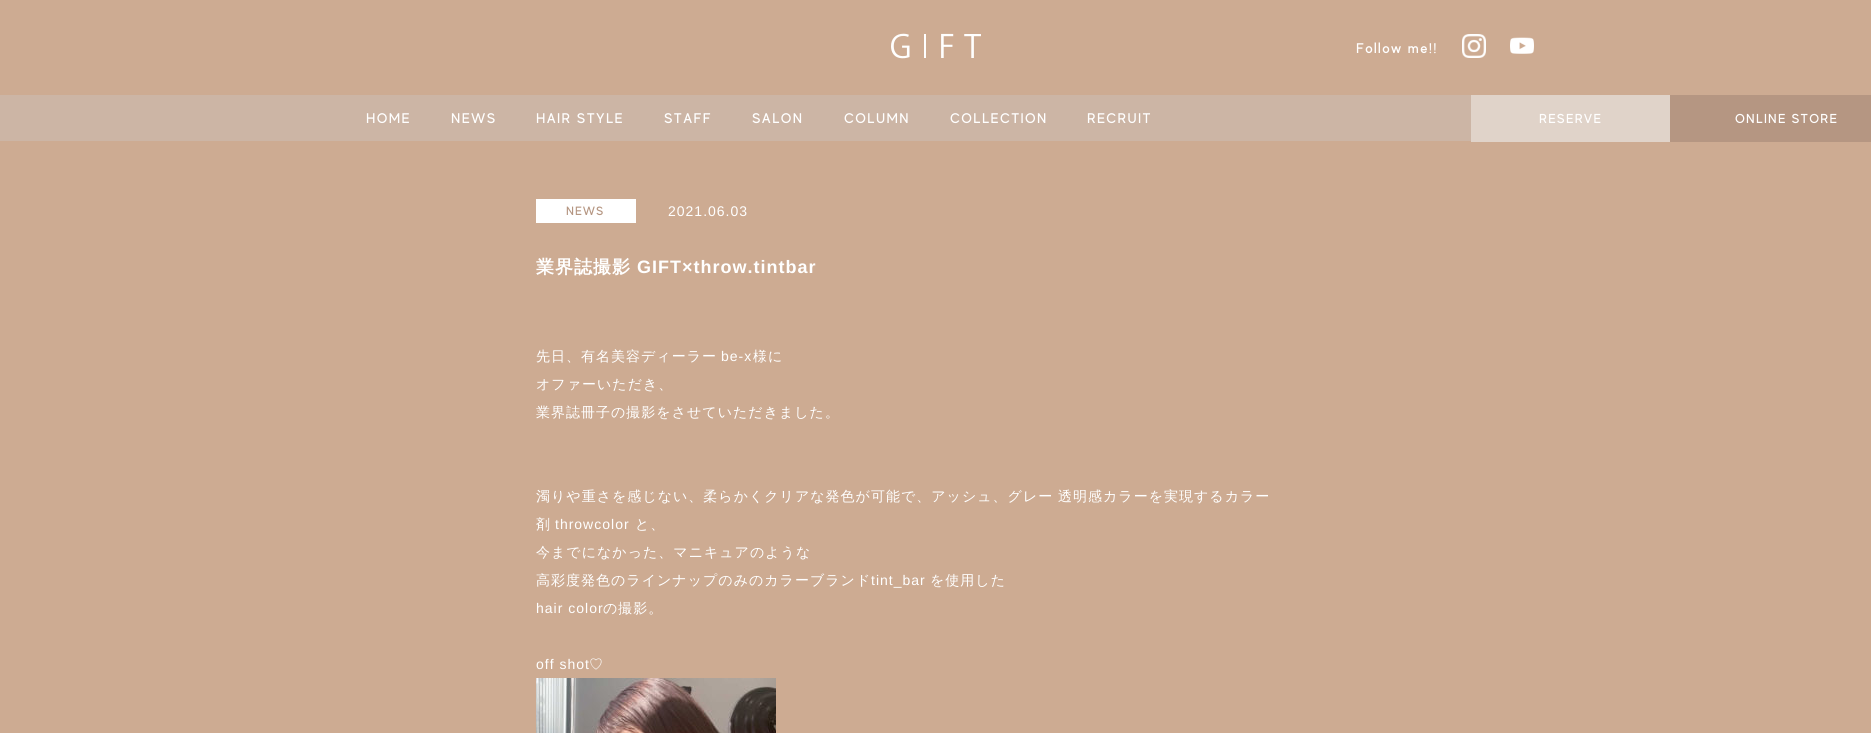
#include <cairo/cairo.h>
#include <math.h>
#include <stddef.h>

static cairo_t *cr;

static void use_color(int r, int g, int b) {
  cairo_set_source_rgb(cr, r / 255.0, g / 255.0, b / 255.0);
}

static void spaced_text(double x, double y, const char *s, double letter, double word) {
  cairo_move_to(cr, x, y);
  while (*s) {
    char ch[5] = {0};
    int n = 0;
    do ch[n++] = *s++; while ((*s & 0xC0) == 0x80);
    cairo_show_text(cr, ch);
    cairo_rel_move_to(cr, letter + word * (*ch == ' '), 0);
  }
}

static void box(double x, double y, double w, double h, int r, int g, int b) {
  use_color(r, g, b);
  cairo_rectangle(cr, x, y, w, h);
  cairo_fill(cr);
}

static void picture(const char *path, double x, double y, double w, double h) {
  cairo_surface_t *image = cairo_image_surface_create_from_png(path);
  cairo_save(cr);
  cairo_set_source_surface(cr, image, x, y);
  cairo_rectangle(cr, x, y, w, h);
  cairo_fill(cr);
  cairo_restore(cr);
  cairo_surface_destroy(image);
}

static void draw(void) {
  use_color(205, 171, 146);
  cairo_paint(cr);
  picture("img_01.png", 891, 33, 90, 26);
  picture("img_02.png", 1462, 34, 24, 24);
  picture("img_03.png", 1510, 37, 24, 17);
  box(0, 95, 1471, 46, 204, 181, 165);
  box(1471, 95, 199, 47, 224, 211, 201);
  box(1670, 95, 201, 47, 181, 150, 130);
  box(536, 199, 100, 24, 255, 255, 255);
  picture("img_04.png", 536, 678, 240, 55);
  cairo_select_font_face(cr, "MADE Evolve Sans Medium", CAIRO_FONT_SLANT_NORMAL, CAIRO_FONT_WEIGHT_NORMAL);
  cairo_set_font_size(cr, 14);
  spaced_text(1356, 53, "Follow me!!", 1.4, 0);
  spaced_text(366, 123, "HOME", 1.4, 0);
  spaced_text(451, 123, "NEWS", 1.4, 0);
  spaced_text(536, 123, "HAIR STYLE", 1.4, 0);
  spaced_text(664, 123, "STAFF", 1.4, 0);
  spaced_text(752, 123, "SALON", 1.4, 0);
  spaced_text(844, 123, "COLUMN", 1.4, 0);
  spaced_text(950, 123, "COLLECTION", 1.4, 0);
  spaced_text(1087, 123, "RECRUIT", 1.4, 0);
  cairo_set_font_size(cr, 13);
  spaced_text(1539, 123, "RESERVE", 1.25, 0);
  spaced_text(1735, 123, "ONLINE STORE", 1.25, 0);
  cairo_set_font_size(cr, 12);
  use_color(181, 150, 130);
  spaced_text(566, 215, "NEWS", 1, 0);
  cairo_select_font_face(cr, "Liberation Sans", CAIRO_FONT_SLANT_NORMAL, CAIRO_FONT_WEIGHT_NORMAL);
  cairo_set_font_size(cr, 14);
  use_color(255, 255, 255);
  spaced_text(668, 216, "2021.06.03", 1, 0);
  cairo_select_font_face(cr, "WenQuanYi Zen Hei", CAIRO_FONT_SLANT_NORMAL, CAIRO_FONT_WEIGHT_BOLD);
  cairo_set_font_size(cr, 18);
  spaced_text(536, 273, "業界誌撮影", 1, 0);
  cairo_select_font_face(cr, "Liberation Sans", CAIRO_FONT_SLANT_NORMAL, CAIRO_FONT_WEIGHT_BOLD);
  spaced_text(637, 273, "GIFT×throw.tintbar", 1, 0);
  cairo_select_font_face(cr, "WenQuanYi Zen Hei Medium", CAIRO_FONT_SLANT_NORMAL, CAIRO_FONT_WEIGHT_NORMAL);
  cairo_set_font_size(cr, 14);
  spaced_text(536, 361, "先日、有名美容ディーラー", 1, 0);
  cairo_select_font_face(cr, "Liberation Sans", CAIRO_FONT_SLANT_NORMAL, CAIRO_FONT_WEIGHT_NORMAL);
  spaced_text(721, 361, "be-x", 1, 0);
  cairo_select_font_face(cr, "WenQuanYi Zen Hei Medium", CAIRO_FONT_SLANT_NORMAL, CAIRO_FONT_WEIGHT_NORMAL);
  spaced_text(753, 361, "様に", 1, 0);
  spaced_text(536, 389, "オファーいただき、", 1, 0);
  spaced_text(536, 417, "業界誌冊子の撮影をさせていただきました。", 1, 0);
  spaced_text(536, 501, "濁りや重さを感じない、柔らかくクリアな発色が可能で、アッシュ、グレー", 1, 0);
  spaced_text(1058, 501, "透明感カラーを実現するカラー", 1, 0);
  spaced_text(536, 529, "剤", 1, 0);
  cairo_select_font_face(cr, "Liberation Sans", CAIRO_FONT_SLANT_NORMAL, CAIRO_FONT_WEIGHT_NORMAL);
  spaced_text(555, 529, "throwcolor", 1, 0);
  cairo_select_font_face(cr, "WenQuanYi Zen Hei Medium", CAIRO_FONT_SLANT_NORMAL, CAIRO_FONT_WEIGHT_NORMAL);
  spaced_text(635, 529, "と、", 1, 0);
  spaced_text(536, 557, "今までになかった、マニキュアのような", 1, 0);
  spaced_text(536, 585, "高彩度発色のラインナップのみのカラーブランド", 1, 0);
  cairo_select_font_face(cr, "Liberation Sans", CAIRO_FONT_SLANT_NORMAL, CAIRO_FONT_WEIGHT_NORMAL);
  spaced_text(871, 585, "tint_bar", 1, 0);
  cairo_select_font_face(cr, "WenQuanYi Zen Hei Medium", CAIRO_FONT_SLANT_NORMAL, CAIRO_FONT_WEIGHT_NORMAL);
  spaced_text(930, 585, "を使用した", 1, 0);
  cairo_select_font_face(cr, "Liberation Sans", CAIRO_FONT_SLANT_NORMAL, CAIRO_FONT_WEIGHT_NORMAL);
  spaced_text(536, 613, "hair color", 1, 0);
  cairo_select_font_face(cr, "WenQuanYi Zen Hei Medium", CAIRO_FONT_SLANT_NORMAL, CAIRO_FONT_WEIGHT_NORMAL);
  spaced_text(603, 613, "の撮影。", 1, 0);
  cairo_select_font_face(cr, "Liberation Sans", CAIRO_FONT_SLANT_NORMAL, CAIRO_FONT_WEIGHT_NORMAL);
  spaced_text(536, 669, "off shot", 1, 0);
  cairo_select_font_face(cr, "WenQuanYi Zen Hei Medium", CAIRO_FONT_SLANT_NORMAL, CAIRO_FONT_WEIGHT_NORMAL);
  spaced_text(589, 669, "♡", 1, 0);
}

int main(void) {
  cairo_surface_t *surface = cairo_image_surface_create(CAIRO_FORMAT_RGB24, 1871, 733);
  cr = cairo_create(surface);
  cairo_font_options_t *options = cairo_font_options_create();
  cairo_font_options_set_hint_metrics(options, CAIRO_HINT_METRICS_OFF);
  cairo_font_options_set_hint_style(options, CAIRO_HINT_STYLE_NONE);
  cairo_set_font_options(cr, options);
  cairo_set_miter_limit(cr, 4);
  draw();
  cairo_surface_write_to_png(surface, "out.png");
  cairo_font_options_destroy(options);
  cairo_destroy(cr);
  cairo_surface_destroy(surface);
  return 0;
}
